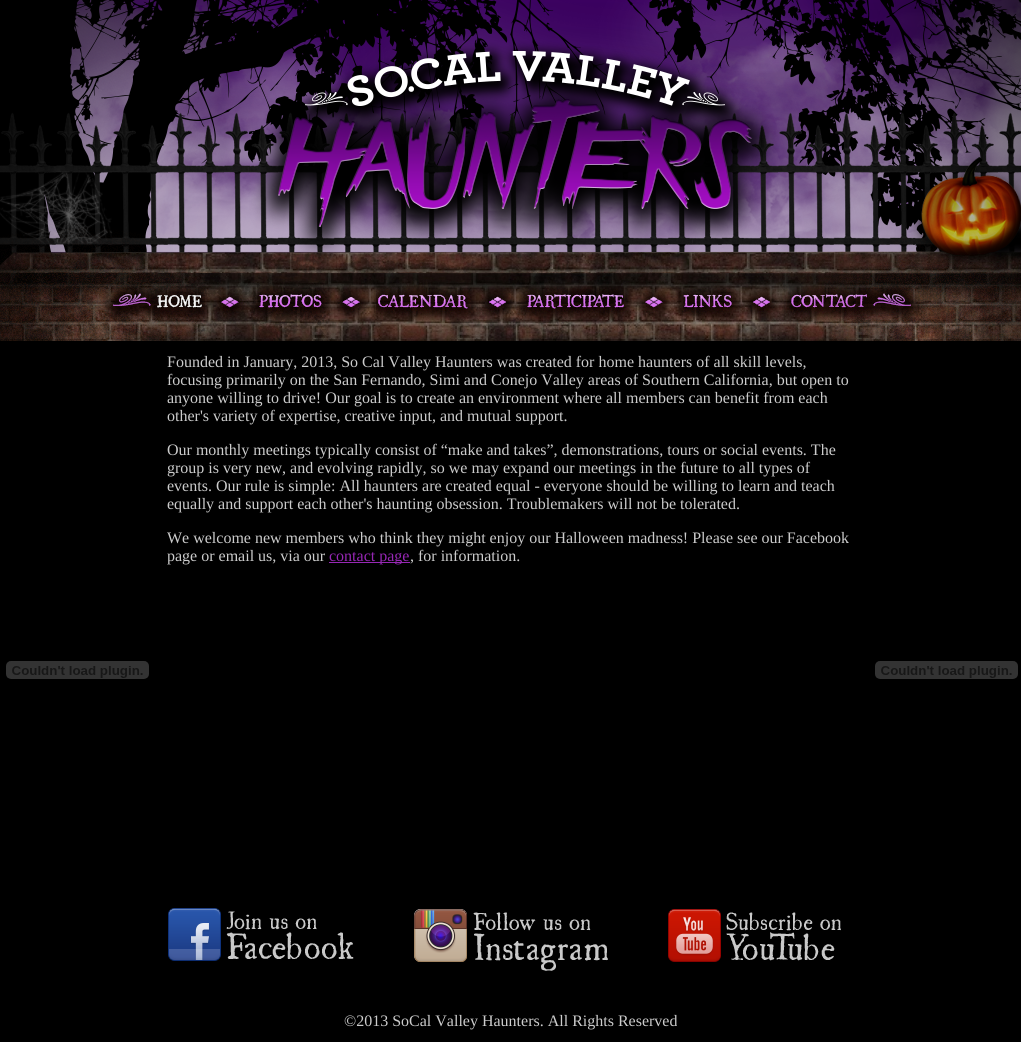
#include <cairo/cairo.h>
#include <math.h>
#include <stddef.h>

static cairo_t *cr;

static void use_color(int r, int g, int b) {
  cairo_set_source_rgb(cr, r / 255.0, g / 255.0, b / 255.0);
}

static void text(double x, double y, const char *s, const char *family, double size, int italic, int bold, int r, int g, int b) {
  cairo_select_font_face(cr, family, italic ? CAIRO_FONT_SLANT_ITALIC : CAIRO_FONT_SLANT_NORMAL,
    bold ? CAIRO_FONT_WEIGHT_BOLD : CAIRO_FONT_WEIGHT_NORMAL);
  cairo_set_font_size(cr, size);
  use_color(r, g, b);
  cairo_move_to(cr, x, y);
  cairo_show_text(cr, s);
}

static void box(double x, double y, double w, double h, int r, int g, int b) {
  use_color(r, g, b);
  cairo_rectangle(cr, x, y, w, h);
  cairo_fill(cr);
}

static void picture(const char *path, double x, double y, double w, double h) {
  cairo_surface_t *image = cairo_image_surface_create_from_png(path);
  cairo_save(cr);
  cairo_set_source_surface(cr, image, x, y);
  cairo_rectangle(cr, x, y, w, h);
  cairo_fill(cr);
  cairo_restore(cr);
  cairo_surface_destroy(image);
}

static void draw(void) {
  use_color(0, 0, 0);
  cairo_paint(cr);
  picture("img_01.png", 0, 0, 1021, 253);
  picture("img_02.png", 0, 260, 1, 13);
  picture("img_03.png", 1, 253, 1020, 20);
  picture("img_04.png", 0, 273, 155, 51);
  picture("img_05.png", 155, 273, 50, 51);
  picture("img_06.png", 205, 273, 53, 51);
  picture("img_07.png", 258, 273, 64, 51);
  picture("img_08.png", 322, 273, 54, 51);
  picture("img_09.png", 376, 273, 95, 51);
  picture("img_10.png", 471, 273, 54, 51);
  picture("img_11.png", 525, 273, 102, 51);
  picture("img_12.png", 627, 273, 55, 51);
  picture("img_13.png", 682, 273, 52, 51);
  picture("img_14.png", 734, 273, 55, 51);
  picture("img_15.png", 789, 273, 80, 51);
  picture("img_16.png", 869, 273, 152, 51);
  picture("img_17.png", 0, 324, 1021, 17);
  box(329, 562, 81, 1, 151, 39, 181);
  picture("img_18.png", 168, 908, 186, 53);
  picture("img_19.png", 414, 909, 194, 62);
  picture("img_20.png", 668, 909, 173, 53);
  picture("img_21.png", 6, 661, 143, 18);
  picture("img_22.png", 875, 661, 143, 18);
  text(167, 367, "Founded in January, 2013, So Cal Valley Haunters was created for home haunters of all skill levels,", "Liberation Serif", 16, 0, 0, 204, 204, 204);
  text(167, 385, "focusing primarily on the San Fernando, Simi and Conejo Valley areas of Southern California, but open to", "Liberation Serif", 16, 0, 0, 204, 204, 204);
  text(167, 403, "anyone willing to drive! Our goal is to create an environment where all members can benefit from each", "Liberation Serif", 16, 0, 0, 204, 204, 204);
  text(167, 421, "other's variety of expertise, creative input, and mutual support.", "Liberation Serif", 16, 0, 0, 204, 204, 204);
  text(167, 455, "Our monthly meetings typically consist of “make and takes”, demonstrations, tours or social events. The", "Liberation Serif", 16, 0, 0, 204, 204, 204);
  text(167, 473, "group is very new, and evolving rapidly, so we may expand our meetings in the future to all types of", "Liberation Serif", 16, 0, 0, 204, 204, 204);
  text(167, 491, "events. Our rule is simple: All haunters are created equal - everyone should be willing to learn and teach", "Liberation Serif", 16, 0, 0, 204, 204, 204);
  text(167, 509, "equally and support each other's haunting obsession. Troublemakers will not be tolerated.", "Liberation Serif", 16, 0, 0, 204, 204, 204);
  text(167, 543, "We welcome new members who think they might enjoy our Halloween madness! Please see our Facebook", "Liberation Serif", 16, 0, 0, 204, 204, 204);
  text(167, 561, "page or email us, via our", "Liberation Serif", 16, 0, 0, 204, 204, 204);
  text(329, 561, "contact page", "Liberation Serif", 16, 0, 0, 151, 39, 181);
  text(410, 561, ", for information.", "Liberation Serif", 16, 0, 0, 204, 204, 204);
  text(344, 1026, "©2013 SoCal Valley Haunters. All Rights Reserved", "Liberation Serif", 16, 0, 0, 204, 204, 204);
}

int main(void) {
  cairo_surface_t *surface = cairo_image_surface_create(CAIRO_FORMAT_RGB24, 1021, 1042);
  cr = cairo_create(surface);
  cairo_font_options_t *options = cairo_font_options_create();
  cairo_font_options_set_hint_metrics(options, CAIRO_HINT_METRICS_OFF);
  cairo_font_options_set_hint_style(options, CAIRO_HINT_STYLE_NONE);
  cairo_set_font_options(cr, options);
  cairo_set_miter_limit(cr, 4);
  draw();
  cairo_surface_write_to_png(surface, "out.png");
  cairo_font_options_destroy(options);
  cairo_destroy(cr);
  cairo_surface_destroy(surface);
  return 0;
}
